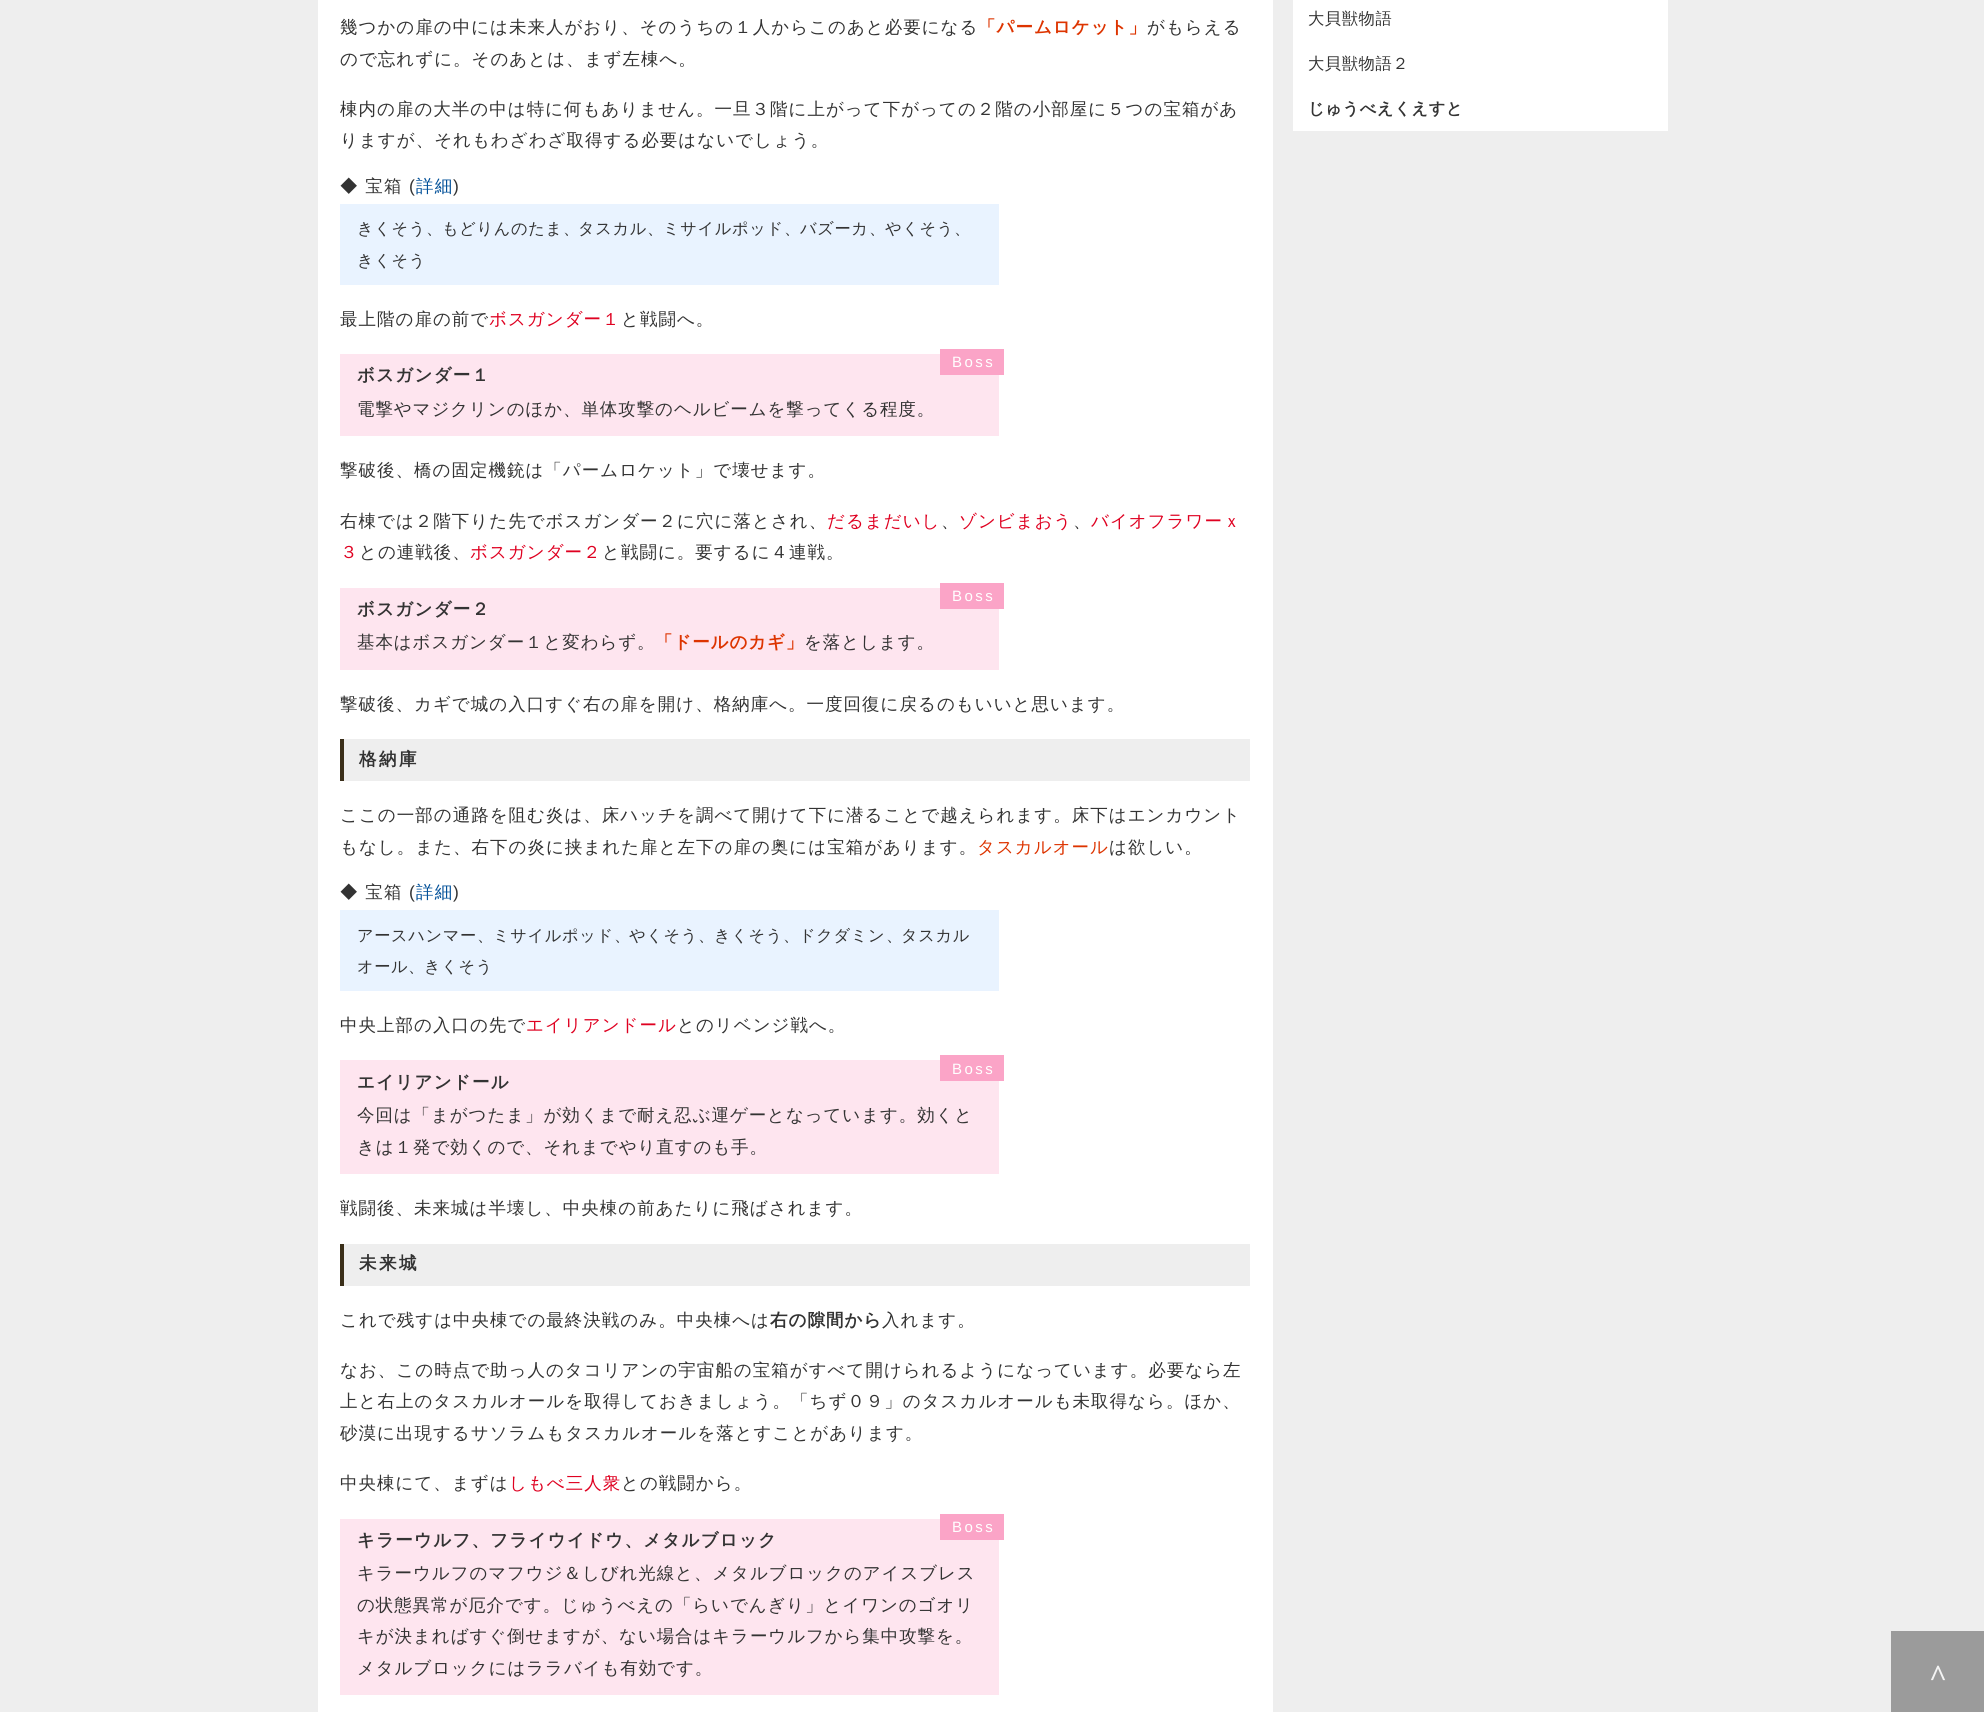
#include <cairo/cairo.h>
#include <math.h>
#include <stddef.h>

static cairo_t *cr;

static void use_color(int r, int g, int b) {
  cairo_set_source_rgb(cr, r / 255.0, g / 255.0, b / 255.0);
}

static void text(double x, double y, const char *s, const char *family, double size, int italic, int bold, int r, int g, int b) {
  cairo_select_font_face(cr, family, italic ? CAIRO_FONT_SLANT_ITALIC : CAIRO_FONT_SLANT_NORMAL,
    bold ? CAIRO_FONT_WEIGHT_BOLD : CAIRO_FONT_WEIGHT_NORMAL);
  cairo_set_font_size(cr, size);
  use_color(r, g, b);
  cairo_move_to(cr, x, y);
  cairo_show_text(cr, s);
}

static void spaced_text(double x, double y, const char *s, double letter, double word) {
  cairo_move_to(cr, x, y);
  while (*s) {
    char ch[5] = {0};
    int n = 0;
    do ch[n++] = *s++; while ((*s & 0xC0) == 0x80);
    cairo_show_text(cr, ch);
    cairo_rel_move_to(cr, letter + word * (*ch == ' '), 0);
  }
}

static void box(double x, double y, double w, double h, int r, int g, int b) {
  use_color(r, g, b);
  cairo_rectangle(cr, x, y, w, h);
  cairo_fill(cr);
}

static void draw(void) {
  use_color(238, 238, 238);
  cairo_paint(cr);
  box(318, 0, 955, 1712, 255, 255, 255);
  box(340, 204, 659, 81, 233, 243, 255);
  box(340, 354, 659, 82, 254, 229, 239);
  box(940, 349, 64, 26, 251, 164, 199);
  box(340, 588, 659, 82, 254, 229, 239);
  box(940, 583, 64, 26, 251, 164, 199);
  box(344, 739, 906, 42, 238, 238, 238);
  box(340, 739, 4, 42, 58, 46, 25);
  box(340, 910, 659, 81, 233, 243, 255);
  box(340, 1060, 659, 114, 254, 229, 239);
  box(940, 1055, 64, 26, 251, 164, 199);
  box(344, 1244, 906, 42, 238, 238, 238);
  box(340, 1244, 4, 42, 58, 46, 25);
  box(340, 1519, 659, 176, 254, 229, 239);
  box(940, 1514, 64, 26, 251, 164, 199);
  box(1293, 0, 375, 131, 255, 255, 255);
  box(1891, 1631, 93, 81, 155, 155, 155);
  cairo_select_font_face(cr, "WenQuanYi Zen Hei Medium", CAIRO_FONT_SLANT_NORMAL, CAIRO_FONT_WEIGHT_NORMAL);
  cairo_set_font_size(cr, 17.5);
  use_color(51, 51, 51);
  spaced_text(340, 33, "幾つかの扉の中には未来人がおり、そのうちの１人からこのあと必要になる", 1, 0);
  cairo_select_font_face(cr, "WenQuanYi Zen Hei", CAIRO_FONT_SLANT_NORMAL, CAIRO_FONT_WEIGHT_BOLD);
  use_color(221, 52, 0);
  spaced_text(978, 33, "「パームロケット」", 1, 0);
  cairo_select_font_face(cr, "WenQuanYi Zen Hei Medium", CAIRO_FONT_SLANT_NORMAL, CAIRO_FONT_WEIGHT_NORMAL);
  use_color(51, 51, 51);
  spaced_text(1147, 33, "がもらえる", 1, 0);
  spaced_text(340, 65, "ので忘れずに。そのあとは、まず左棟へ。", 1, 0);
  spaced_text(340, 115, "棟内の扉の大半の中は特に何もありません。一旦３階に上がって下がっての２階の小部屋に５つの宝箱があ", 1, 0);
  spaced_text(340, 146, "りますが、それもわざわざ取得する必要はないでしょう。", 1, 0);
  spaced_text(340, 192, "◆ 宝箱", 1.25, 0);
  cairo_select_font_face(cr, "Liberation Sans", CAIRO_FONT_SLANT_NORMAL, CAIRO_FONT_WEIGHT_NORMAL);
  spaced_text(409, 192, "(", 1.25, 0);
  cairo_select_font_face(cr, "WenQuanYi Zen Hei Medium", CAIRO_FONT_SLANT_NORMAL, CAIRO_FONT_WEIGHT_NORMAL);
  use_color(1, 80, 153);
  spaced_text(416, 192, "詳細", 1.25, 0);
  cairo_select_font_face(cr, "Liberation Sans", CAIRO_FONT_SLANT_NORMAL, CAIRO_FONT_WEIGHT_NORMAL);
  use_color(51, 51, 51);
  spaced_text(453, 192, ")", 1.25, 0);
  cairo_select_font_face(cr, "WenQuanYi Zen Hei Medium", CAIRO_FONT_SLANT_NORMAL, CAIRO_FONT_WEIGHT_NORMAL);
  cairo_set_font_size(cr, 16.25);
  spaced_text(357, 234, "きくそう", 0.6, 0);
  text(426, 234, "、", "WenQuanYi Zen Hei Medium", 16.25, 0, 0, 51, 51, 51);
  spaced_text(442, 234, "もどりんのたま", 0.6, 0);
  text(563, 234, "、", "WenQuanYi Zen Hei Medium", 16.25, 0, 0, 51, 51, 51);
  spaced_text(578, 234, "タスカル", 0.6, 0);
  text(647, 234, "、", "WenQuanYi Zen Hei Medium", 16.25, 0, 0, 51, 51, 51);
  spaced_text(663, 234, "ミサイルポッド", 0.6, 0);
  text(784, 234, "、", "WenQuanYi Zen Hei Medium", 16.25, 0, 0, 51, 51, 51);
  spaced_text(800, 234, "バズーカ", 0.6, 0);
  text(869, 234, "、", "WenQuanYi Zen Hei Medium", 16.25, 0, 0, 51, 51, 51);
  spaced_text(885, 234, "やくそう", 0.6, 0);
  text(954, 234, "、", "WenQuanYi Zen Hei Medium", 16.25, 0, 0, 51, 51, 51);
  spaced_text(357, 266, "きくそう", 0.6, 0);
  cairo_set_font_size(cr, 17.5);
  spaced_text(340, 325, "最上階の扉の前で", 1, 0);
  use_color(223, 1, 33);
  spaced_text(489, 325, "ボスガンダー１", 1, 0);
  use_color(51, 51, 51);
  spaced_text(621, 325, "と戦闘へ。", 1, 0);
  cairo_select_font_face(cr, "Liberation Sans", CAIRO_FONT_SLANT_NORMAL, CAIRO_FONT_WEIGHT_NORMAL);
  cairo_set_font_size(cr, 15);
  use_color(255, 255, 255);
  spaced_text(952, 367, "Boss", 2.5, 0);
  cairo_select_font_face(cr, "WenQuanYi Zen Hei", CAIRO_FONT_SLANT_NORMAL, CAIRO_FONT_WEIGHT_BOLD);
  cairo_set_font_size(cr, 17.5);
  use_color(51, 51, 51);
  spaced_text(357, 381, "ボスガンダー１", 1.25, 0);
  cairo_select_font_face(cr, "WenQuanYi Zen Hei Medium", CAIRO_FONT_SLANT_NORMAL, CAIRO_FONT_WEIGHT_NORMAL);
  spaced_text(357, 415, "電撃やマジクリンのほか、単体攻撃のヘルビームを撃ってくる程度。", 0.9, 0);
  spaced_text(340, 476, "撃破後、橋の固定機銃は「パームロケット」で壊せます。", 1, 0);
  spaced_text(340, 527, "右棟では２階下りた先でボスガンダー２に穴に落とされ、", 1, 0);
  use_color(223, 1, 33);
  spaced_text(827, 527, "だるまだいし", 1, 0);
  use_color(51, 51, 51);
  spaced_text(941, 527, "、", 1, 0);
  use_color(223, 1, 33);
  spaced_text(959, 527, "ゾンビまおう", 1, 0);
  use_color(51, 51, 51);
  spaced_text(1073, 527, "、", 1, 0);
  use_color(223, 1, 33);
  spaced_text(1091, 527, "バイオフラワーｘ", 1, 0);
  spaced_text(340, 558, "３", 1, 0);
  use_color(51, 51, 51);
  spaced_text(359, 558, "との連戦後、", 1, 0);
  use_color(223, 1, 33);
  spaced_text(470, 558, "ボスガンダー２", 1, 0);
  use_color(51, 51, 51);
  spaced_text(602, 558, "と戦闘に。要するに４連戦。", 1, 0);
  cairo_select_font_face(cr, "Liberation Sans", CAIRO_FONT_SLANT_NORMAL, CAIRO_FONT_WEIGHT_NORMAL);
  cairo_set_font_size(cr, 15);
  use_color(255, 255, 255);
  spaced_text(952, 601, "Boss", 2.5, 0);
  cairo_select_font_face(cr, "WenQuanYi Zen Hei", CAIRO_FONT_SLANT_NORMAL, CAIRO_FONT_WEIGHT_BOLD);
  cairo_set_font_size(cr, 17.5);
  use_color(51, 51, 51);
  spaced_text(357, 615, "ボスガンダー２", 1.25, 0);
  cairo_select_font_face(cr, "WenQuanYi Zen Hei Medium", CAIRO_FONT_SLANT_NORMAL, CAIRO_FONT_WEIGHT_NORMAL);
  spaced_text(357, 648, "基本はボスガンダー１と変わらず。", 0.9, 0);
  cairo_select_font_face(cr, "WenQuanYi Zen Hei", CAIRO_FONT_SLANT_NORMAL, CAIRO_FONT_WEIGHT_BOLD);
  use_color(221, 52, 0);
  spaced_text(655, 648, "「ドールのカギ」", 0.9, 0);
  cairo_select_font_face(cr, "WenQuanYi Zen Hei Medium", CAIRO_FONT_SLANT_NORMAL, CAIRO_FONT_WEIGHT_NORMAL);
  use_color(51, 51, 51);
  spaced_text(804, 648, "を落とします。", 0.9, 0);
  spaced_text(340, 710, "撃破後、カギで城の入口すぐ右の扉を開け、格納庫へ。一度回復に戻るのもいいと思います。", 1, 0);
  cairo_select_font_face(cr, "WenQuanYi Zen Hei", CAIRO_FONT_SLANT_NORMAL, CAIRO_FONT_WEIGHT_BOLD);
  spaced_text(359, 765, "格納庫", 2.5, 0);
  cairo_select_font_face(cr, "WenQuanYi Zen Hei Medium", CAIRO_FONT_SLANT_NORMAL, CAIRO_FONT_WEIGHT_NORMAL);
  spaced_text(340, 821, "ここの一部の通路を阻む炎は、床ハッチを調べて開けて下に潜ることで越えられます。床下はエンカウント", 1, 0);
  spaced_text(340, 853, "もなし。また、右下の炎に挟まれた扉と左下の扉の奥には宝箱があります。", 1, 0);
  use_color(221, 52, 0);
  spaced_text(977, 853, "タスカルオール", 1, 0);
  use_color(51, 51, 51);
  spaced_text(1109, 853, "は欲しい。", 1, 0);
  spaced_text(340, 898, "◆ 宝箱", 1.25, 0);
  cairo_select_font_face(cr, "Liberation Sans", CAIRO_FONT_SLANT_NORMAL, CAIRO_FONT_WEIGHT_NORMAL);
  spaced_text(409, 898, "(", 1.25, 0);
  cairo_select_font_face(cr, "WenQuanYi Zen Hei Medium", CAIRO_FONT_SLANT_NORMAL, CAIRO_FONT_WEIGHT_NORMAL);
  use_color(1, 80, 153);
  spaced_text(416, 898, "詳細", 1.25, 0);
  cairo_select_font_face(cr, "Liberation Sans", CAIRO_FONT_SLANT_NORMAL, CAIRO_FONT_WEIGHT_NORMAL);
  use_color(51, 51, 51);
  spaced_text(453, 898, ")", 1.25, 0);
  cairo_select_font_face(cr, "WenQuanYi Zen Hei Medium", CAIRO_FONT_SLANT_NORMAL, CAIRO_FONT_WEIGHT_NORMAL);
  cairo_set_font_size(cr, 16.25);
  spaced_text(357, 941, "アースハンマー", 0.6, 0);
  text(477, 941, "、", "WenQuanYi Zen Hei Medium", 16.25, 0, 0, 51, 51, 51);
  spaced_text(493, 941, "ミサイルポッド", 0.6, 0);
  text(614, 941, "、", "WenQuanYi Zen Hei Medium", 16.25, 0, 0, 51, 51, 51);
  spaced_text(629, 941, "やくそう", 0.6, 0);
  text(698, 941, "、", "WenQuanYi Zen Hei Medium", 16.25, 0, 0, 51, 51, 51);
  spaced_text(714, 941, "きくそう", 0.6, 0);
  text(783, 941, "、", "WenQuanYi Zen Hei Medium", 16.25, 0, 0, 51, 51, 51);
  spaced_text(799, 941, "ドクダミン", 0.6, 0);
  text(886, 941, "、", "WenQuanYi Zen Hei Medium", 16.25, 0, 0, 51, 51, 51);
  spaced_text(901, 941, "タスカル", 0.6, 0);
  spaced_text(357, 972, "オール", 0.6, 0);
  text(408, 972, "、", "WenQuanYi Zen Hei Medium", 16.25, 0, 0, 51, 51, 51);
  spaced_text(424, 972, "きくそう", 0.6, 0);
  cairo_set_font_size(cr, 17.5);
  spaced_text(340, 1031, "中央上部の入口の先で", 1, 0);
  use_color(223, 1, 33);
  spaced_text(526, 1031, "エイリアンドール", 1, 0);
  use_color(51, 51, 51);
  spaced_text(677, 1031, "とのリベンジ戦へ。", 1, 0);
  cairo_select_font_face(cr, "Liberation Sans", CAIRO_FONT_SLANT_NORMAL, CAIRO_FONT_WEIGHT_NORMAL);
  cairo_set_font_size(cr, 15);
  use_color(255, 255, 255);
  spaced_text(952, 1074, "Boss", 2.5, 0);
  cairo_select_font_face(cr, "WenQuanYi Zen Hei", CAIRO_FONT_SLANT_NORMAL, CAIRO_FONT_WEIGHT_BOLD);
  cairo_set_font_size(cr, 17.5);
  use_color(51, 51, 51);
  spaced_text(357, 1088, "エイリアンドール", 1.25, 0);
  cairo_select_font_face(cr, "WenQuanYi Zen Hei Medium", CAIRO_FONT_SLANT_NORMAL, CAIRO_FONT_WEIGHT_NORMAL);
  spaced_text(357, 1121, "今回は「まがつたま」が効くまで耐え忍ぶ運ゲーとなっています。効くと", 0.9, 0);
  spaced_text(357, 1153, "きは１発で効くので、それまでやり直すのも手。", 0.9, 0);
  spaced_text(340, 1214, "戦闘後、未来城は半壊し、中央棟の前あたりに飛ばされます。", 1, 0);
  cairo_select_font_face(cr, "WenQuanYi Zen Hei", CAIRO_FONT_SLANT_NORMAL, CAIRO_FONT_WEIGHT_BOLD);
  spaced_text(359, 1269, "未来城", 2.5, 0);
  cairo_select_font_face(cr, "WenQuanYi Zen Hei Medium", CAIRO_FONT_SLANT_NORMAL, CAIRO_FONT_WEIGHT_NORMAL);
  spaced_text(340, 1326, "これで残すは中央棟での最終決戦のみ。中央棟へは", 1, 0);
  cairo_select_font_face(cr, "WenQuanYi Zen Hei", CAIRO_FONT_SLANT_NORMAL, CAIRO_FONT_WEIGHT_BOLD);
  spaced_text(770, 1326, "右の隙間から", 1, 0);
  cairo_select_font_face(cr, "WenQuanYi Zen Hei Medium", CAIRO_FONT_SLANT_NORMAL, CAIRO_FONT_WEIGHT_NORMAL);
  spaced_text(882, 1326, "入れます。", 1, 0);
  spaced_text(340, 1376, "なお、この時点で助っ人のタコリアンの宇宙船の宝箱がすべて開けられるようになっています。必要なら左", 1, 0);
  spaced_text(340, 1407, "上と右上のタスカルオールを取得しておきましょう。「ちず０９」のタスカルオールも未取得なら。ほか、", 1, 0);
  spaced_text(340, 1439, "砂漠に出現するサソラムもタスカルオールを落とすことがあります。", 1, 0);
  spaced_text(340, 1489, "中央棟にて、まずは", 1, 0);
  use_color(223, 1, 33);
  spaced_text(509, 1489, "しもべ三人衆", 1, 0);
  use_color(51, 51, 51);
  spaced_text(621, 1489, "との戦闘から。", 1, 0);
  cairo_select_font_face(cr, "Liberation Sans", CAIRO_FONT_SLANT_NORMAL, CAIRO_FONT_WEIGHT_NORMAL);
  cairo_set_font_size(cr, 15);
  use_color(255, 255, 255);
  spaced_text(952, 1532, "Boss", 2.5, 0);
  cairo_select_font_face(cr, "WenQuanYi Zen Hei", CAIRO_FONT_SLANT_NORMAL, CAIRO_FONT_WEIGHT_BOLD);
  cairo_set_font_size(cr, 17.5);
  use_color(51, 51, 51);
  spaced_text(357, 1546, "キラーウルフ、フライウイドウ、メタルブロック", 1.25, 0);
  cairo_select_font_face(cr, "WenQuanYi Zen Hei Medium", CAIRO_FONT_SLANT_NORMAL, CAIRO_FONT_WEIGHT_NORMAL);
  spaced_text(357, 1579, "キラーウルフのマフウジ＆しびれ光線と、メタルブロックのアイスブレス", 0.9, 0);
  spaced_text(357, 1611, "の状態異常が厄介です。じゅうべえの「らいでんぎり」とイワンのゴオリ", 0.9, 0);
  spaced_text(357, 1642, "キが決まればすぐ倒せますが、ない場合はキラーウルフから集中攻撃を。", 0.9, 0);
  spaced_text(357, 1674, "メタルブロックにはララバイも有効です。", 0.9, 0);
  cairo_set_font_size(cr, 16.25);
  spaced_text(1308, 24, "大貝獣物語", 0.6, 0);
  spaced_text(1308, 69, "大貝獣物語２", 0.6, 0);
  cairo_select_font_face(cr, "WenQuanYi Zen Hei", CAIRO_FONT_SLANT_NORMAL, CAIRO_FONT_WEIGHT_BOLD);
  spaced_text(1308, 114, "じゅうべえくえすと", 0.6, 0);
  text(1929, 1686, "^", "Liberation Serif", 31, 0, 1, 244, 244, 244);
}

int main(void) {
  cairo_surface_t *surface = cairo_image_surface_create(CAIRO_FORMAT_RGB24, 1984, 1712);
  cr = cairo_create(surface);
  cairo_font_options_t *options = cairo_font_options_create();
  cairo_font_options_set_hint_metrics(options, CAIRO_HINT_METRICS_OFF);
  cairo_font_options_set_hint_style(options, CAIRO_HINT_STYLE_NONE);
  cairo_set_font_options(cr, options);
  cairo_set_miter_limit(cr, 4);
  draw();
  cairo_surface_write_to_png(surface, "out.png");
  cairo_font_options_destroy(options);
  cairo_destroy(cr);
  cairo_surface_destroy(surface);
  return 0;
}
